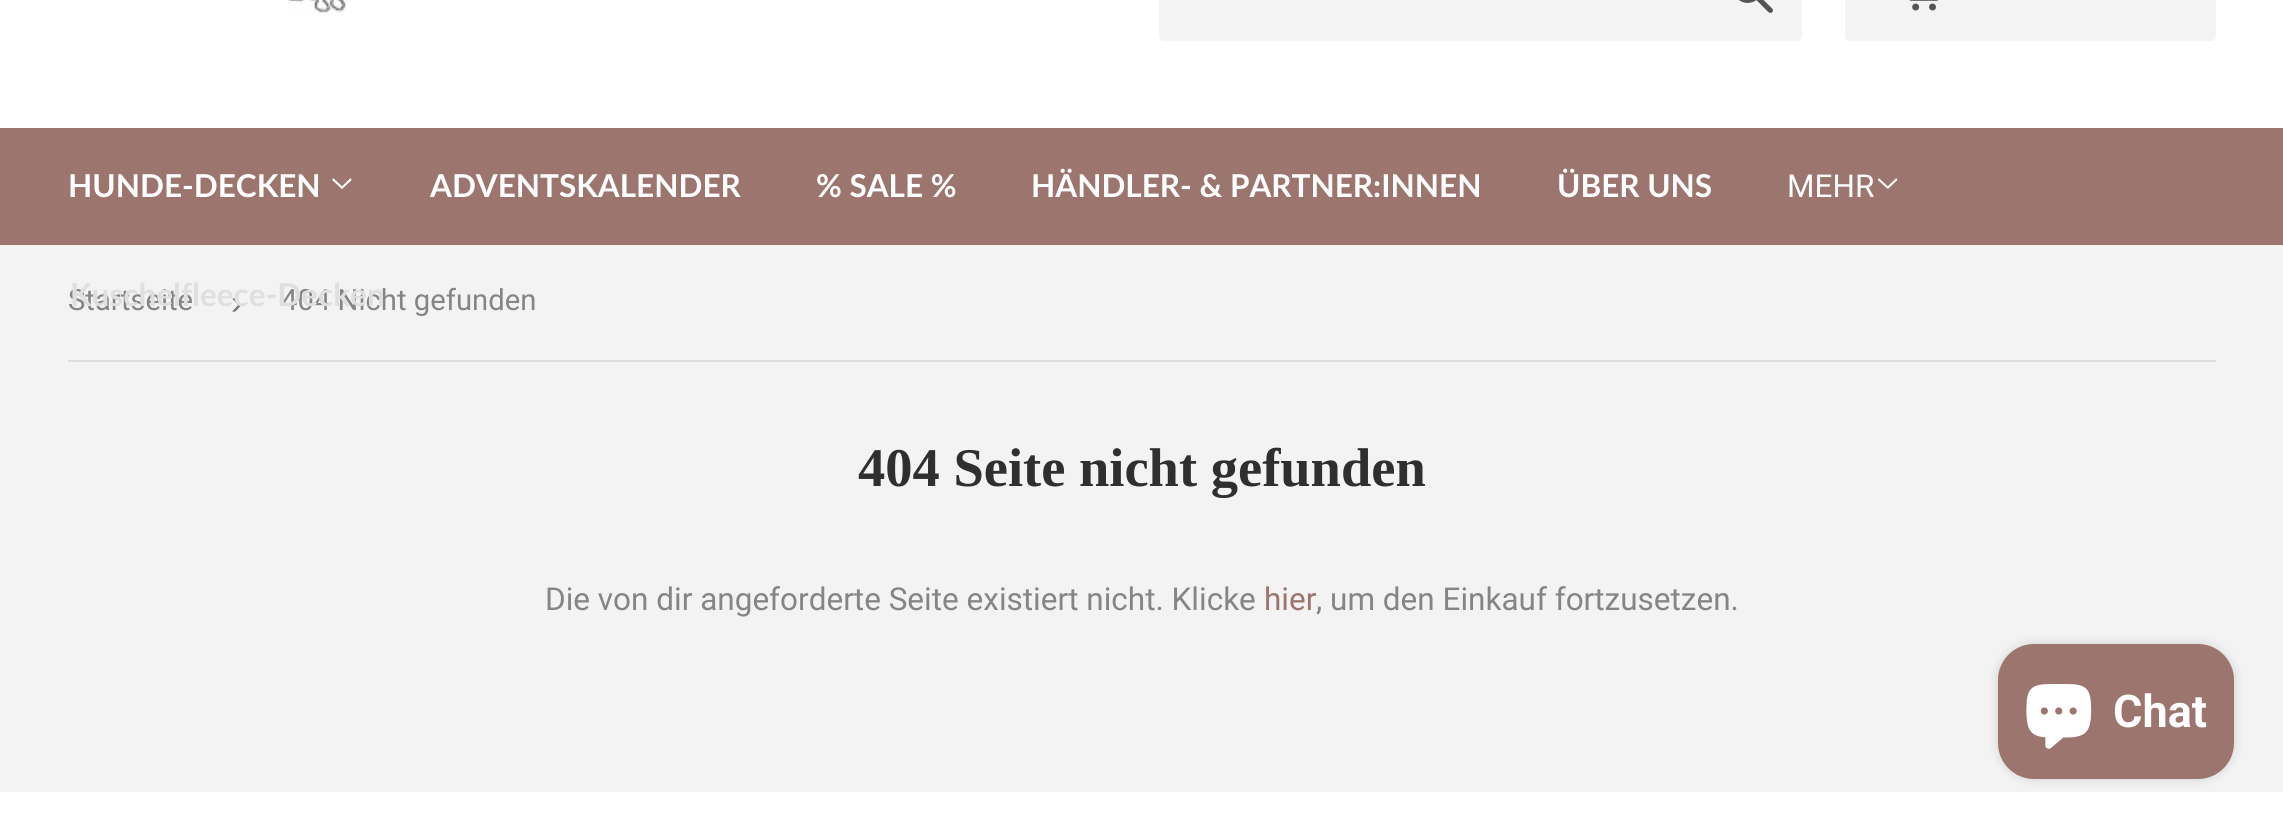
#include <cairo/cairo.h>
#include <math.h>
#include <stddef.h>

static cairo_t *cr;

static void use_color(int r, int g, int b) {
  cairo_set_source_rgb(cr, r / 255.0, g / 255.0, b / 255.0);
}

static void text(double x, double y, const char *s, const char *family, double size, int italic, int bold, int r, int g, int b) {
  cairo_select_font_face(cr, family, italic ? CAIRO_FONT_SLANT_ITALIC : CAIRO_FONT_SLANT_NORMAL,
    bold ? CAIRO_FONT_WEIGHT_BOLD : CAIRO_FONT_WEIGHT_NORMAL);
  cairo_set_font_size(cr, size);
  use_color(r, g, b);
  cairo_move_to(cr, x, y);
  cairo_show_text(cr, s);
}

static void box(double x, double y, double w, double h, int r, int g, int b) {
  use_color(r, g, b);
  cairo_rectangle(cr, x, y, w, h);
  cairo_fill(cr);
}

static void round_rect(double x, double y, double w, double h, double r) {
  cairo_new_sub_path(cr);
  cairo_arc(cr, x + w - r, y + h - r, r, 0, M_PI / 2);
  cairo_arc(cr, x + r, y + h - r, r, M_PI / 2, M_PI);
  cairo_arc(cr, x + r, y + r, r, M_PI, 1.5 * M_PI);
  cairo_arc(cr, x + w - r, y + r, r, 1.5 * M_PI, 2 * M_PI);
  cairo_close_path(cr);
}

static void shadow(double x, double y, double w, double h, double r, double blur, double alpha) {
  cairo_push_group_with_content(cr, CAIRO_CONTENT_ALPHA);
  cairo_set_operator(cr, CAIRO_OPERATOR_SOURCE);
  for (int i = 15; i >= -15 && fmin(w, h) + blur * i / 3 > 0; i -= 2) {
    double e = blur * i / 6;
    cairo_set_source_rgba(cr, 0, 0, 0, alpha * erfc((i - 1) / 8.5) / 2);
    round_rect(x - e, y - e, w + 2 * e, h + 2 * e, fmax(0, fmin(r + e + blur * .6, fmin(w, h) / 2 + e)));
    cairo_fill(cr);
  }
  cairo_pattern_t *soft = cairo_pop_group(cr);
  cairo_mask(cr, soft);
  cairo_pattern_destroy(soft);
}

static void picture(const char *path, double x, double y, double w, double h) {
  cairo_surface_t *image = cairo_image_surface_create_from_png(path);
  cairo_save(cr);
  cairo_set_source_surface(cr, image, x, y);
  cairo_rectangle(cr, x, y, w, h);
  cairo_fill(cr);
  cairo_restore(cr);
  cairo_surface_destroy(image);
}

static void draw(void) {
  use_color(243, 243, 243);
  cairo_paint(cr);
  box(0, 0, 2283, 128, 255, 255, 255);
  picture("img_01.png", 288, 0, 58, 13);
  use_color(243, 243, 243);
  round_rect(1159, -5, 643, 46, 5);
  cairo_fill(cr);
  picture("img_02.png", 1739, 0, 34, 13);
  round_rect(1845, -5, 371, 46, 5);
  cairo_fill(cr);
  picture("img_03.png", 1909, 0, 30, 11);
  box(0, 128, 2283, 117, 156, 117, 111);
  picture("img_04.png", 332, 178, 20, 11);
  picture("img_05.png", 1878, 178, 20, 11);
  box(68, 360, 2148, 2, 222, 222, 222);
  box(0, 792, 2283, 32, 255, 255, 255);
  use_color(0, 0, 0);
  shadow(1998, 644, 236, 135, 36, 5.5, 0.15);
  use_color(156, 117, 111);
  round_rect(1998, 644, 236, 135, 36);
  cairo_fill(cr);
  picture("img_06.png", 2026, 684, 66, 65);
  text(68, 197, "HUNDE-DECKEN", "Lato", 31.5, 0, 1, 255, 255, 255);
  text(430, 197, "ADVENTSKALENDER", "Lato", 31.5, 0, 1, 255, 255, 255);
  text(816, 197, "% SALE %", "Lato", 31.5, 0, 1, 255, 255, 255);
  text(1031, 197, "HÄNDLER- & PARTNER:INNEN", "Lato", 31.5, 0, 1, 255, 255, 255);
  text(1557, 197, "ÜBER UNS", "Lato", 31.5, 0, 1, 255, 255, 255);
  text(1787, 197, "MEHR", "Roboto", 31.5, 0, 0, 255, 255, 255);
  text(68, 310, "Startseite", "Roboto", 29.25, 0, 0, 133, 133, 133);
  text(231, 314, "›", "Liberation Sans", 34, 0, 0, 118, 118, 118);
  text(281, 310, "404 Nicht gefunden", "Roboto", 29.25, 0, 0, 133, 133, 133);
  text(70, 306, "Kuschelfleece-Decken", "Lato", 31.5, 0, 1, 223, 223, 223);
  text(858, 486, "404 Seite nicht gefunden", "Liberation Serif", 54.5, 0, 1, 47, 47, 47);
  text(545, 610, "Die von dir angeforderte Seite existiert nicht. Klicke", "Roboto", 31.5, 0, 0, 133, 133, 133);
  text(1264, 610, "hier", "Roboto", 31.5, 0, 0, 156, 117, 111);
  text(1316, 610, ", um den Einkauf fortzusetzen.", "Roboto", 31.5, 0, 0, 133, 133, 133);
  text(2113, 727, "Chat", "Roboto", 45, 0, 1, 255, 255, 255);
}

int main(void) {
  cairo_surface_t *surface = cairo_image_surface_create(CAIRO_FORMAT_RGB24, 2283, 824);
  cr = cairo_create(surface);
  cairo_font_options_t *options = cairo_font_options_create();
  cairo_font_options_set_hint_metrics(options, CAIRO_HINT_METRICS_OFF);
  cairo_font_options_set_hint_style(options, CAIRO_HINT_STYLE_NONE);
  cairo_set_font_options(cr, options);
  cairo_set_miter_limit(cr, 4);
  draw();
  cairo_surface_write_to_png(surface, "out.png");
  cairo_font_options_destroy(options);
  cairo_destroy(cr);
  cairo_surface_destroy(surface);
  return 0;
}
